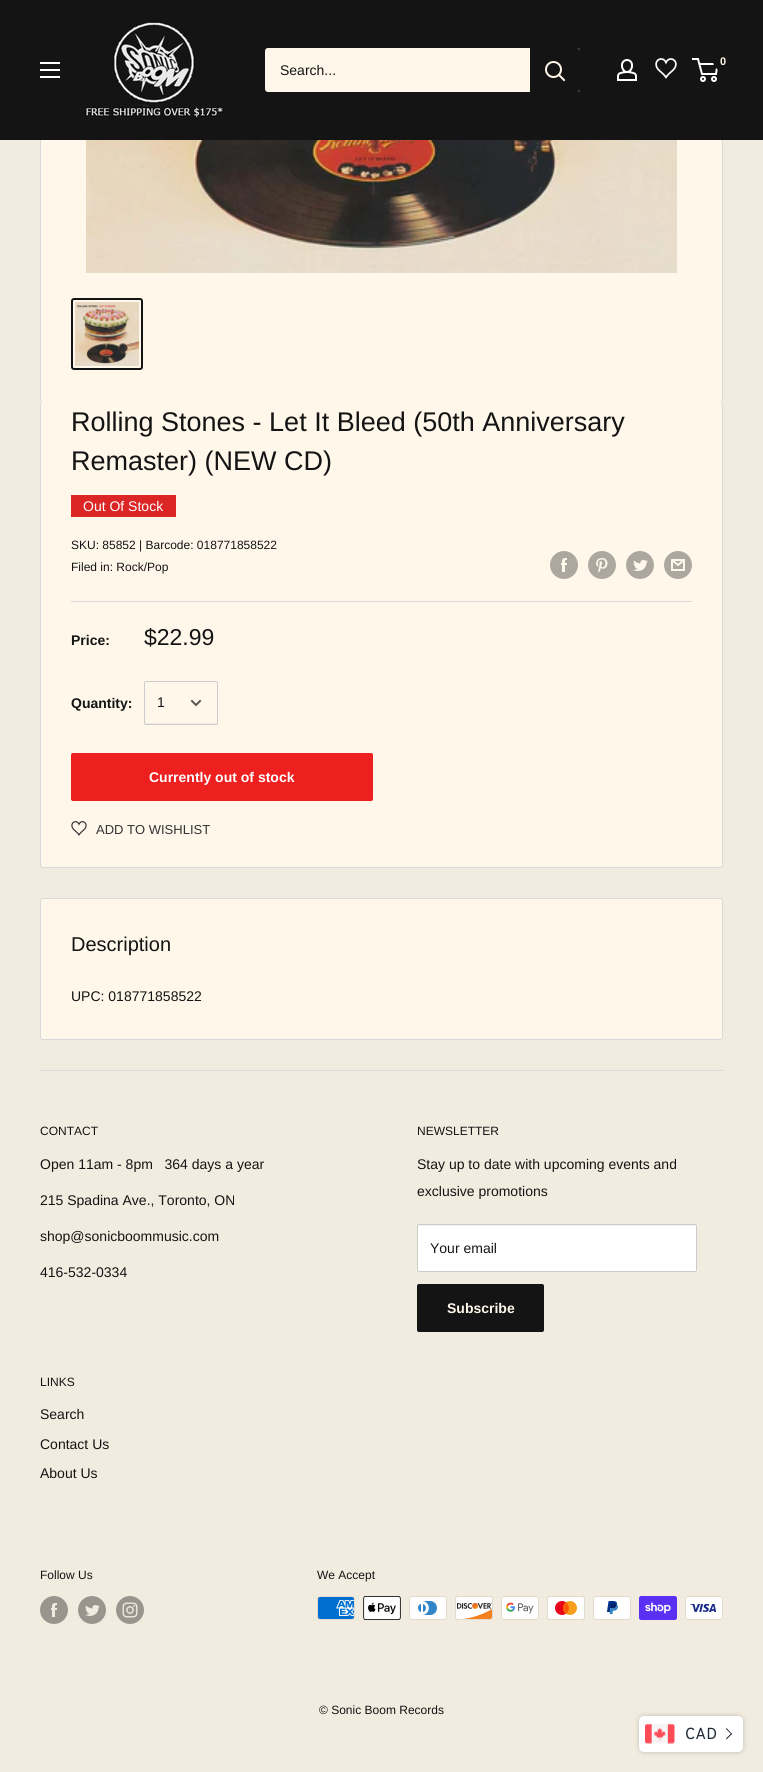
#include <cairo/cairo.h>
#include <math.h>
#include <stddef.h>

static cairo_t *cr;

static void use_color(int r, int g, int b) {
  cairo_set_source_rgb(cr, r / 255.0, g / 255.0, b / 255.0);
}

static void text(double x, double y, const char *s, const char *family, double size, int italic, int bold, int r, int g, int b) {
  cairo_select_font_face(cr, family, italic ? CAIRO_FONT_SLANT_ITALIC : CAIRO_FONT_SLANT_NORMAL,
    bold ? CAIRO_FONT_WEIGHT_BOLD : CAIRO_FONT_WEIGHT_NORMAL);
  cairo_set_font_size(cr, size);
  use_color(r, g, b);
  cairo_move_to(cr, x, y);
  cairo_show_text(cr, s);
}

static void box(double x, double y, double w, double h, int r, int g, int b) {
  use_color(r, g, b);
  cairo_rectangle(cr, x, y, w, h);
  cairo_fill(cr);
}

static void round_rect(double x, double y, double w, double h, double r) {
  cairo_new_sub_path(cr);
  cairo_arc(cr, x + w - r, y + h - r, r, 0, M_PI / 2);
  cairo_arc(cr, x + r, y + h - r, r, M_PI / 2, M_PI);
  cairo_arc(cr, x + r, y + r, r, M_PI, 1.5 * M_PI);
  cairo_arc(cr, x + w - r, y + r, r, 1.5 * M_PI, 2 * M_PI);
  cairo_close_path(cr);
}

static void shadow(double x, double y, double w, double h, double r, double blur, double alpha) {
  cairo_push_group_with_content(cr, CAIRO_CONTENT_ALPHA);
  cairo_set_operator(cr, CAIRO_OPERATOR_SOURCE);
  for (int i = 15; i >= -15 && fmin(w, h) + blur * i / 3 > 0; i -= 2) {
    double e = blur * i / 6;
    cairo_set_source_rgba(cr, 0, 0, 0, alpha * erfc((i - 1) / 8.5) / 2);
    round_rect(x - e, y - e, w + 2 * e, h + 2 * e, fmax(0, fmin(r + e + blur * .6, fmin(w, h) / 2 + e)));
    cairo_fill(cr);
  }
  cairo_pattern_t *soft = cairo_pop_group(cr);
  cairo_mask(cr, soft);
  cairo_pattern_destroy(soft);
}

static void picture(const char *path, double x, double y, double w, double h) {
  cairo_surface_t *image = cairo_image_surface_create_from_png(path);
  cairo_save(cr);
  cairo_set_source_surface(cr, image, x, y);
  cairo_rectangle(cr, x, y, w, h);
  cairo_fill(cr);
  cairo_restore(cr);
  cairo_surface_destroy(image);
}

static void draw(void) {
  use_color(242, 235, 223);
  cairo_paint(cr);
  use_color(255, 247, 234);
  round_rect(40.5, -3.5, 682, 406, 2.5);
  cairo_fill_preserve(cr);
  use_color(217, 217, 217);
  cairo_set_line_width(cr, 1);
  cairo_stroke(cr);
  box(0, 0, 763, 140, 20, 20, 20);
  picture("img_01.png", 40, 62, 20, 16);
  picture("img_02.png", 84, 21, 140, 99);
  use_color(255, 247, 234);
  round_rect(265, 48, 315, 44, 3);
  cairo_fill(cr);
  use_color(20, 20, 20);
  cairo_new_path(cr);
  cairo_move_to(cr, 530, 48);
  cairo_line_to(cr, 577, 48);
  cairo_curve_to(cr, 578.5, 48, 580, 49.5, 580, 51);
  cairo_line_to(cr, 580, 89);
  cairo_curve_to(cr, 580, 90.5, 578.5, 92, 577, 92);
  cairo_line_to(cr, 530, 92);
  cairo_close_path(cr);
  cairo_fill(cr);
  cairo_new_path(cr);
  cairo_move_to(cr, 564, 80);
  cairo_line_to(cr, 559, 75);
  use_color(255, 247, 234);
  cairo_set_line_width(cr, 2);
  cairo_set_line_cap(cr, CAIRO_LINE_CAP_SQUARE);
  cairo_stroke(cr);
  cairo_arc(cr, 553.5, 69.5, 7.5, 0, 2 * M_PI);
  cairo_set_line_cap(cr, CAIRO_LINE_CAP_BUTT);
  cairo_stroke(cr);
  picture("img_03.png", 617, 59, 20, 22);
  picture("img_04.png", 655, 58, 22, 21);
  cairo_arc(cr, 703, 79, 2, 0, 2 * M_PI);
  use_color(255, 255, 255);
  cairo_stroke(cr);
  cairo_arc(cr, 714, 79, 2, 0, 2 * M_PI);
  cairo_stroke(cr);
  cairo_new_path(cr);
  cairo_move_to(cr, 699.5, 64);
  cairo_line_to(cr, 717.5, 64);
  cairo_line_to(cr, 716, 74);
  cairo_line_to(cr, 702, 74);
  cairo_line_to(cr, 698, 59);
  cairo_line_to(cr, 692, 59);
  cairo_stroke(cr);
  use_color(20, 20, 20);
  cairo_arc(cr, 723, 61, 10, 0, 2 * M_PI);
  cairo_fill(cr);
  picture("img_05.png", 86, 140, 591, 133);
  round_rect(72, 299, 70, 70, 2);
  cairo_stroke(cr);
  picture("img_06.png", 75, 302, 64, 64);
  use_color(255, 247, 234);
  cairo_new_path(cr);
  cairo_move_to(cr, 43, 402);
  cairo_curve_to(cr, 41, 402, 40, 404, 40, 406);
  cairo_curve_to(cr, 40, 404, 41, 403, 43, 403);
  cairo_line_to(cr, 720, 403);
  cairo_curve_to(cr, 722, 403, 723, 404, 723, 406);
  cairo_curve_to(cr, 723, 404, 722, 402, 720, 402);
  cairo_close_path(cr);
  cairo_fill(cr);
  round_rect(40, 403, 683, 465, 3);
  cairo_fill(cr);
  use_color(217, 217, 217);
  cairo_set_fill_rule(cr, CAIRO_FILL_RULE_EVEN_ODD);
  cairo_new_path(cr);
  cairo_move_to(cr, 43, 403);
  cairo_line_to(cr, 720, 403);
  cairo_curve_to(cr, 722, 403, 723, 404, 723, 406);
  cairo_line_to(cr, 723, 865);
  cairo_curve_to(cr, 723, 867, 722, 868, 720, 868);
  cairo_line_to(cr, 43, 868);
  cairo_curve_to(cr, 41, 868, 40, 867, 40, 865);
  cairo_line_to(cr, 40, 406);
  cairo_curve_to(cr, 40, 404, 41, 403, 43, 403);
  cairo_close_path(cr);
  cairo_move_to(cr, 43, 403);
  cairo_line_to(cr, 720, 403);
  cairo_curve_to(cr, 721, 403, 722, 404, 722, 406);
  cairo_line_to(cr, 722, 865);
  cairo_curve_to(cr, 722, 866, 721, 867, 720, 867);
  cairo_line_to(cr, 43, 867);
  cairo_curve_to(cr, 42, 867, 41, 866, 41, 865);
  cairo_line_to(cr, 41, 406);
  cairo_curve_to(cr, 41, 404, 42, 403, 43, 403);
  cairo_close_path(cr);
  cairo_fill(cr);
  box(71, 495, 105, 22, 220, 38, 38);
  picture("img_07.png", 550, 551, 28, 28);
  picture("img_08.png", 588, 551, 28, 28);
  picture("img_09.png", 626, 551, 28, 28);
  picture("img_10.png", 664, 551, 28, 28);
  box(71, 601, 621, 1, 217, 217, 217);
  use_color(240, 234, 225);
  cairo_set_fill_rule(cr, CAIRO_FILL_RULE_WINDING);
  cairo_new_path(cr);
  cairo_move_to(cr, 145, 722);
  cairo_curve_to(cr, 145, 723, 145, 724, 146, 724);
  cairo_line_to(cr, 216, 724);
  cairo_line_to(cr, 217, 722);
  cairo_line_to(cr, 216, 723);
  cairo_line_to(cr, 158, 723);
  cairo_line_to(cr, 146, 723);
  cairo_close_path(cr);
  cairo_fill(cr);
  round_rect(144.5, 681.5, 73, 43, 1.5);
  use_color(204, 204, 204);
  cairo_set_line_width(cr, 1);
  cairo_stroke(cr);
  cairo_new_path(cr);
  cairo_move_to(cr, 200, 701);
  cairo_line_to(cr, 196, 705);
  cairo_line_to(cr, 192, 701);
  use_color(91, 88, 84);
  cairo_set_line_width(cr, 2);
  cairo_set_line_cap(cr, CAIRO_LINE_CAP_SQUARE);
  cairo_stroke(cr);
  use_color(237, 31, 31);
  round_rect(71.5, 753.5, 301, 47, 1.5);
  cairo_fill_preserve(cr);
  cairo_set_line_width(cr, 1);
  cairo_set_line_cap(cr, CAIRO_LINE_CAP_BUTT);
  cairo_stroke(cr);
  picture("img_11.png", 71, 821, 16, 15);
  use_color(255, 247, 234);
  round_rect(40.5, 898.5, 682, 141, 2.5);
  cairo_fill_preserve(cr);
  use_color(217, 217, 217);
  cairo_stroke(cr);
  box(40, 1070, 683, 1, 217, 217, 217);
  use_color(255, 255, 255);
  round_rect(417, 1224, 280, 48, 2);
  cairo_fill(cr);
  use_color(242, 242, 242);
  cairo_new_path(cr);
  cairo_move_to(cr, 419, 1226);
  cairo_line_to(cr, 695, 1226);
  cairo_curve_to(cr, 696, 1226, 696, 1226, 696, 1227);
  cairo_curve_to(cr, 696, 1226, 696, 1225, 695, 1225);
  cairo_line_to(cr, 419, 1225);
  cairo_line_to(cr, 418, 1225);
  cairo_line_to(cr, 418, 1227);
  cairo_curve_to(cr, 418, 1226, 418, 1226, 419, 1226);
  cairo_close_path(cr);
  cairo_fill(cr);
  round_rect(417.5, 1224.5, 279, 47, 1.5);
  use_color(204, 204, 204);
  cairo_stroke(cr);
  use_color(20, 20, 20);
  round_rect(417, 1284, 127, 48, 2);
  cairo_fill(cr);
  picture("img_12.png", 40, 1596, 28, 28);
  picture("img_13.png", 78, 1596, 28, 28);
  picture("img_14.png", 116, 1596, 28, 28);
  picture("img_15.png", 317, 1596, 38, 24);
  picture("img_16.png", 363, 1596, 38, 24);
  picture("img_17.png", 409, 1596, 38, 24);
  picture("img_18.png", 455, 1596, 38, 24);
  picture("img_19.png", 501, 1596, 38, 24);
  picture("img_20.png", 547, 1596, 38, 24);
  picture("img_21.png", 593, 1596, 38, 24);
  picture("img_22.png", 639, 1596, 38, 24);
  picture("img_23.png", 685, 1596, 38, 24);
  use_color(33, 43, 54);
  shadow(639, 1716, 104, 36, 5, 2.5, 0.25);
  use_color(255, 255, 255);
  round_rect(639, 1716, 104, 36, 5);
  cairo_fill(cr);
  picture("img_24.png", 645, 1724, 30, 20);
  use_color(33, 43, 54);
  cairo_new_path(cr);
  cairo_move_to(cr, 726, 1729);
  cairo_line_to(cr, 726.5, 1728);
  cairo_line_to(cr, 732, 1734);
  cairo_line_to(cr, 731.5, 1734.5);
  cairo_close_path(cr);
  cairo_fill(cr);
  cairo_new_path(cr);
  cairo_move_to(cr, 726, 1738.5);
  cairo_line_to(cr, 731.5, 1733);
  cairo_line_to(cr, 732, 1734);
  cairo_line_to(cr, 726.5, 1739.5);
  cairo_close_path(cr);
  cairo_fill(cr);
  text(280, 75, "Search...", "Liberation Sans", 14, 0, 0, 20, 20, 20);
  text(720, 65, "0", "Liberation Sans", 11, 0, 1, 255, 247, 234);
  text(71, 431, "Rolling Stones - Let It Bleed (50th Anniversary", "Liberation Sans", 27, 0, 0, 20, 20, 20);
  text(71, 470, "Remaster) (NEW CD)", "Liberation Sans", 27, 0, 0, 20, 20, 20);
  text(83, 511, "Out Of Stock", "Liberation Sans", 14, 0, 0, 255, 255, 255);
  text(71, 549, "SKU: 85852 | Barcode: 018771858522", "Liberation Sans", 12, 0, 0, 20, 20, 20);
  text(71, 571, "Filed in: Rock/Pop", "Liberation Sans", 12, 0, 0, 20, 20, 20);
  text(71, 645, "Price:", "Liberation Sans", 14, 0, 1, 20, 20, 20);
  text(144, 645, "$22.99", "Liberation Sans", 23, 0, 0, 20, 20, 20);
  text(71, 708, "Quantity:", "Liberation Sans", 14, 0, 1, 20, 20, 20);
  text(157, 707, "1", "Liberation Sans", 14, 0, 0, 20, 20, 20);
  text(149, 782, "Currently out of stock", "Liberation Sans", 14, 0, 1, 255, 255, 255);
  text(96, 834, "ADD TO WISHLIST", "Liberation Sans", 13, 0, 0, 51, 51, 51);
  text(71, 951, "Description", "Liberation Sans", 20, 0, 0, 20, 20, 20);
  text(71, 1001, "UPC: 018771858522", "Liberation Sans", 14, 0, 0, 20, 20, 20);
  text(40, 1135, "CONTACT", "Liberation Sans", 12, 0, 0, 20, 20, 20);
  text(40, 1169, "Open 11am - 8pm   364 days a year", "Liberation Sans", 14, 0, 0, 20, 20, 20);
  text(40, 1205, "215 Spadina Ave., Toronto, ON", "Liberation Sans", 14, 0, 0, 20, 20, 20);
  text(40, 1241, "shop@sonicboommusic.com", "Liberation Sans", 14, 0, 0, 20, 20, 20);
  text(40, 1277, "416-532-0334", "Liberation Sans", 14, 0, 0, 20, 20, 20);
  text(417, 1135, "NEWSLETTER", "Liberation Sans", 12, 0, 0, 20, 20, 20);
  text(417, 1169, "Stay up to date with upcoming events and", "Liberation Sans", 14, 0, 0, 20, 20, 20);
  text(417, 1196, "exclusive promotions", "Liberation Sans", 14, 0, 0, 20, 20, 20);
  text(430, 1253, "Your email", "Liberation Sans", 14, 0, 0, 20, 20, 20);
  text(447, 1313, "Subscribe", "Liberation Sans", 14, 0, 1, 255, 247, 234);
  text(40, 1386, "LINKS", "Liberation Sans", 12, 0, 0, 20, 20, 20);
  text(40, 1419, "Search", "Liberation Sans", 14, 0, 0, 20, 20, 20);
  text(40, 1449, "Contact Us", "Liberation Sans", 14, 0, 0, 20, 20, 20);
  text(40, 1478, "About Us", "Liberation Sans", 14, 0, 0, 20, 20, 20);
  text(40, 1579, "Follow Us", "Liberation Sans", 12, 0, 0, 20, 20, 20);
  text(317, 1579, "We Accept", "Liberation Sans", 12, 0, 0, 20, 20, 20);
  text(319, 1714, "© Sonic Boom Records", "Liberation Sans", 12, 0, 0, 20, 20, 20);
  text(685, 1739, "CAD", "Overpass", 16, 0, 0, 33, 43, 54);
}

int main(void) {
  cairo_surface_t *surface = cairo_image_surface_create(CAIRO_FORMAT_RGB24, 763, 1772);
  cr = cairo_create(surface);
  cairo_font_options_t *options = cairo_font_options_create();
  cairo_font_options_set_hint_metrics(options, CAIRO_HINT_METRICS_OFF);
  cairo_font_options_set_hint_style(options, CAIRO_HINT_STYLE_NONE);
  cairo_set_font_options(cr, options);
  cairo_set_miter_limit(cr, 4);
  draw();
  cairo_surface_write_to_png(surface, "out.png");
  cairo_font_options_destroy(options);
  cairo_destroy(cr);
  cairo_surface_destroy(surface);
  return 0;
}
